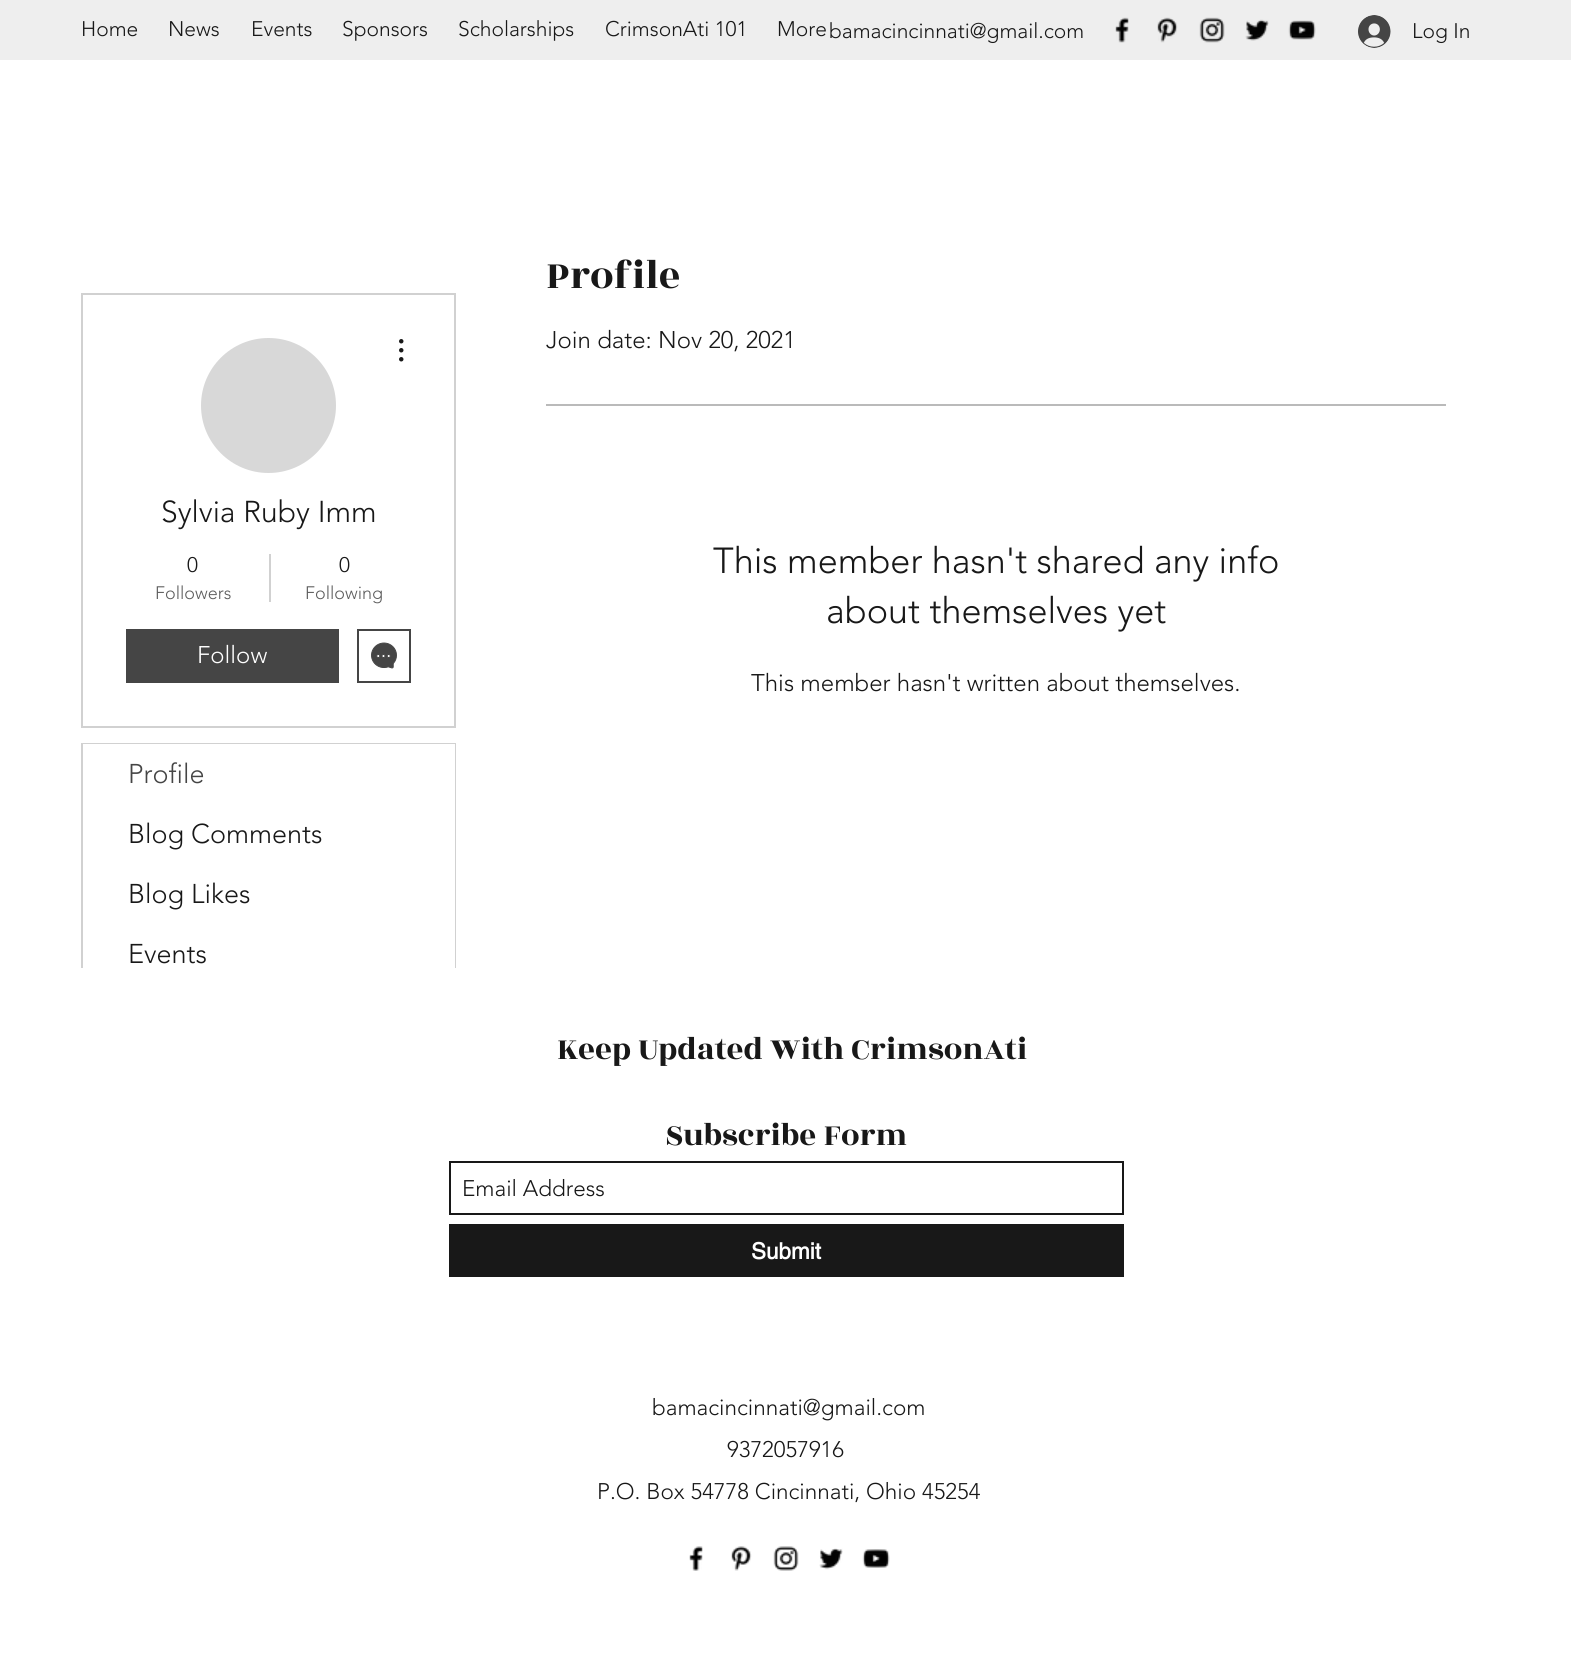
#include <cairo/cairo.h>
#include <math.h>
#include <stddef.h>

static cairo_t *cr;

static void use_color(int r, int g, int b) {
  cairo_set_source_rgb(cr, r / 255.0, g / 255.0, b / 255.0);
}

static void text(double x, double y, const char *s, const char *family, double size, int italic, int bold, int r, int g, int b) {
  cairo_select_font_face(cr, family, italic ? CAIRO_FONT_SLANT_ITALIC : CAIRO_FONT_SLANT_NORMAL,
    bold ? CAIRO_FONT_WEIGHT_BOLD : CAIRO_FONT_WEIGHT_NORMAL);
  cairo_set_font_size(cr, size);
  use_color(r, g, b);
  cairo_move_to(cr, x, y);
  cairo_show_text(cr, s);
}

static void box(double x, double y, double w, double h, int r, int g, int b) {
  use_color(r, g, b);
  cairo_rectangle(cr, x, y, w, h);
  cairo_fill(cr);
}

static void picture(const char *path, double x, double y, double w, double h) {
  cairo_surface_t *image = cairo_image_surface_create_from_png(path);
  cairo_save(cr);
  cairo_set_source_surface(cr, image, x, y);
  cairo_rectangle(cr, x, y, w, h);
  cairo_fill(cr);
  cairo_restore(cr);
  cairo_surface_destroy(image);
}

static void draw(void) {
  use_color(255, 255, 255);
  cairo_paint(cr);
  box(0, 0, 1571, 60, 238, 238, 238);
  picture("img_01.png", 1115, 17, 14, 26);
  picture("img_02.png", 1157, 17, 21, 26);
  picture("img_03.png", 1199, 17, 26, 26);
  picture("img_04.png", 1245, 19, 24, 22);
  picture("img_05.png", 1288, 20, 28, 20);
  picture("img_06.png", 1358, 15, 33, 33);
  cairo_rectangle(cr, 82, 294, 373, 433);
  use_color(209, 209, 209);
  cairo_stroke(cr);
  use_color(216, 216, 216);
  cairo_arc(cr, 268.5, 405.5, 67.5, 0, 2 * M_PI);
  cairo_fill(cr);
  picture("img_07.png", 399, 339, 5, 23);
  box(269, 554, 2, 48, 209, 209, 209);
  box(126, 629, 213, 54, 69, 69, 69);
  cairo_rectangle(cr, 358, 630, 52, 52);
  cairo_stroke(cr);
  picture("img_08.png", 371, 642, 26, 27);
  cairo_rectangle(cr, 82, 744, 373, 241);
  use_color(209, 209, 209);
  cairo_stroke(cr);
  box(83, 744, 372, 60, 255, 255, 255);
  box(454, 804, 1, 164, 255, 255, 255);
  box(546, 404, 900, 2, 186, 186, 186);
  box(81, 968, 375, 18, 255, 255, 255);
  cairo_rectangle(cr, 450, 1162, 673, 52);
  use_color(24, 24, 24);
  cairo_stroke(cr);
  box(449, 1224, 675, 53, 24, 24, 24);
  picture("img_09.png", 689, 1546, 14, 25);
  picture("img_10.png", 731, 1546, 21, 25);
  picture("img_11.png", 773, 1546, 26, 25);
  picture("img_12.png", 819, 1548, 24, 22);
  picture("img_13.png", 862, 1549, 28, 19);
  text(81, 36, "Home", "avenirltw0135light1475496 Light", 21, 0, 0, 24, 24, 24);
  text(168, 36, "News", "avenirltw0135light1475496 Light", 21, 0, 0, 24, 24, 24);
  text(251, 36, "Events", "avenirltw0135light1475496 Light", 21, 0, 0, 24, 24, 24);
  text(342, 36, "Sponsors", "avenirltw0135light1475496 Light", 21, 0, 0, 24, 24, 24);
  text(458, 36, "Scholarships", "avenirltw0135light1475496 Light", 21, 0, 0, 24, 24, 24);
  text(605, 36, "CrimsonAti 101", "avenirltw0135light1475496 Light", 21, 0, 0, 24, 24, 24);
  text(777, 36, "More", "avenirltw0135light1475496 Light", 21, 0, 0, 24, 24, 24);
  text(829, 38, "bamacincinnati@gmail.com", "avenirltw0135light1475496 Light", 21, 0, 0, 24, 24, 24);
  text(1412, 38, "Log In", "avenirltw0135light1475496 Light", 21, 0, 0, 24, 24, 24);
  text(161, 522, "Sylvia Ruby Imm", "avenirltw0135light1475496 Light", 30, 0, 0, 24, 24, 24);
  text(187, 572, "0", "avenirltw0135light1475496 Light", 21, 0, 0, 24, 24, 24);
  text(155, 599, "Followers", "avenirltw0135light1475496 Light", 18, 0, 0, 93, 93, 93);
  text(339, 572, "0", "avenirltw0135light1475496 Light", 21, 0, 0, 24, 24, 24);
  text(305, 599, "Following", "avenirltw0135light1475496 Light", 18, 0, 0, 93, 93, 93);
  text(197, 663, "Follow", "avenirltw0135light1475496 Light", 24, 0, 0, 255, 255, 255);
  text(128, 783, "Profile", "avenirltw0135light1475496 Light", 27, 0, 0, 69, 69, 69);
  text(128, 843, "Blog Comments", "avenirltw0135light1475496 Light", 27, 0, 0, 24, 24, 24);
  text(128, 903, "Blog Likes", "avenirltw0135light1475496 Light", 27, 0, 0, 24, 24, 24);
  text(128, 963, "Events", "avenirltw0135light1475496 Light", 27, 0, 0, 24, 24, 24);
  text(546, 288, "Profile", "Rozha One", 42, 0, 0, 24, 24, 24);
  text(546, 348, "Join date: Nov 20, 2021", "avenirltw0135light1475496 Light", 24, 0, 0, 24, 24, 24);
  text(713, 573, "This member hasn't shared any info", "avenirltw0135light1475496 Light", 36, 0, 0, 24, 24, 24);
  text(826, 623, "about themselves yet", "avenirltw0135light1475496 Light", 36, 0, 0, 24, 24, 24);
  text(751, 691, "This member hasn't written about themselves.", "avenirltw0135light1475496 Light", 24, 0, 0, 24, 24, 24);
  text(557, 1059, "Keep Updated With CrimsonAti", "Rozha One", 33, 0, 0, 24, 24, 24);
  text(665, 1145, "Subscribe Form", "Rozha One", 33, 0, 0, 24, 24, 24);
  text(462, 1196, "Email Address", "avenirltw0135light1475496 Light", 22.5, 0, 0, 24, 24, 24);
  text(751, 1259, "Submit", "helvetica", 22.5, 0, 1, 255, 255, 255);
  text(652, 1415, "bamacincinnati@gmail.com", "avenirltw0135light1475496 Light", 22.5, 0, 0, 24, 24, 24);
  text(727, 1457, "9372057916", "avenirltw0135light1475496 Light", 22.5, 0, 0, 24, 24, 24);
  text(597, 1499, "P.O. Box 54778 Cincinnati, Ohio 45254", "avenirltw0135light1475496 Light", 22.5, 0, 0, 24, 24, 24);
}

int main(void) {
  cairo_surface_t *surface = cairo_image_surface_create(CAIRO_FORMAT_RGB24, 1571, 1656);
  cr = cairo_create(surface);
  cairo_font_options_t *options = cairo_font_options_create();
  cairo_font_options_set_hint_metrics(options, CAIRO_HINT_METRICS_OFF);
  cairo_font_options_set_hint_style(options, CAIRO_HINT_STYLE_NONE);
  cairo_set_font_options(cr, options);
  cairo_set_miter_limit(cr, 4);
  draw();
  cairo_surface_write_to_png(surface, "out.png");
  cairo_font_options_destroy(options);
  cairo_destroy(cr);
  cairo_surface_destroy(surface);
  return 0;
}
